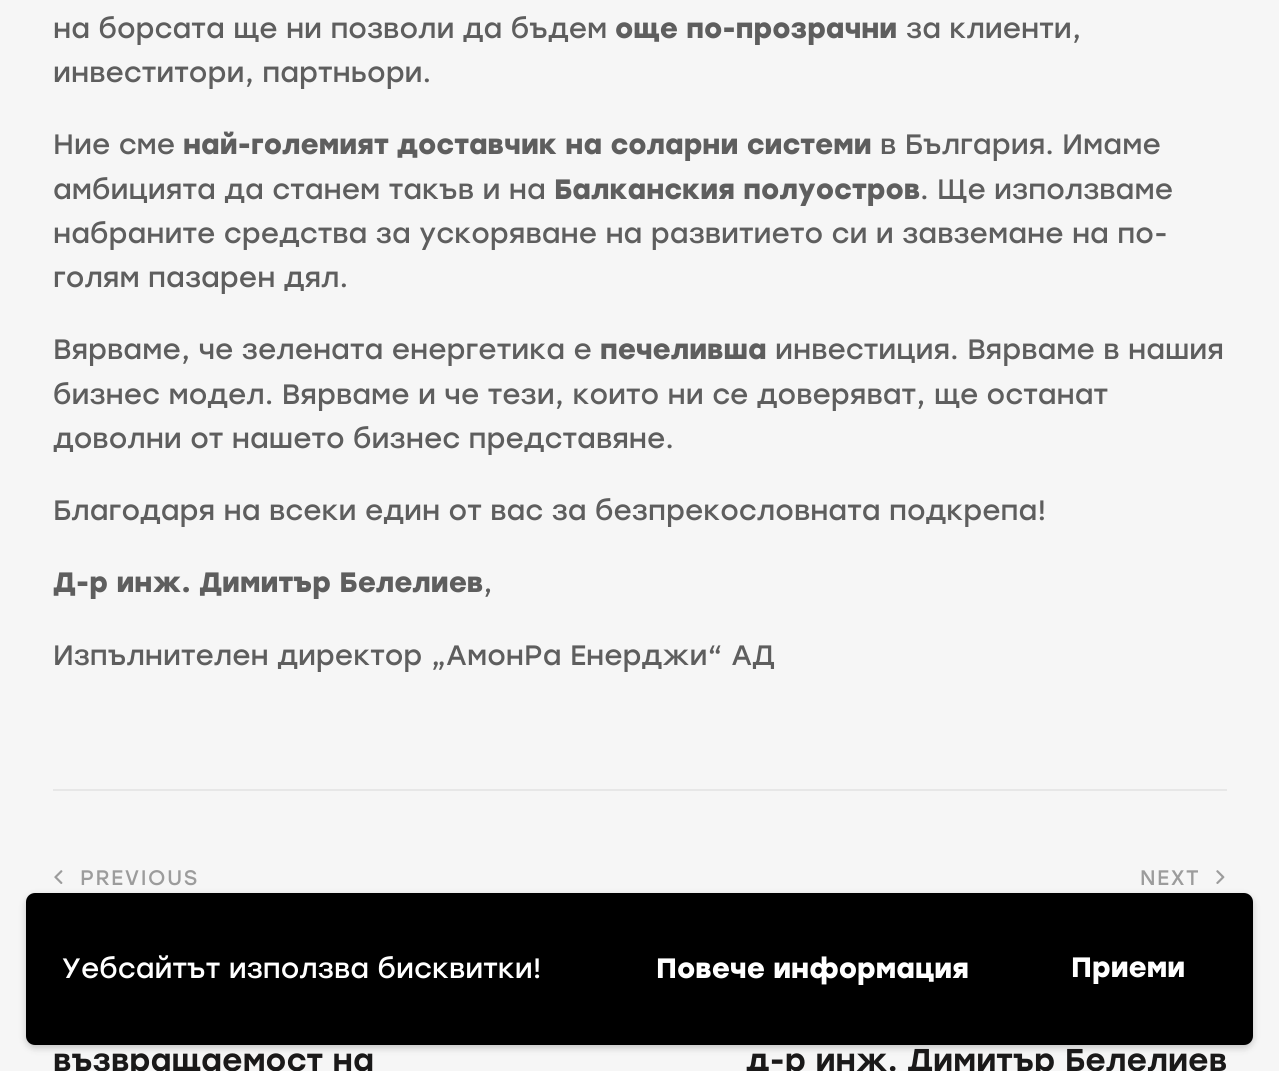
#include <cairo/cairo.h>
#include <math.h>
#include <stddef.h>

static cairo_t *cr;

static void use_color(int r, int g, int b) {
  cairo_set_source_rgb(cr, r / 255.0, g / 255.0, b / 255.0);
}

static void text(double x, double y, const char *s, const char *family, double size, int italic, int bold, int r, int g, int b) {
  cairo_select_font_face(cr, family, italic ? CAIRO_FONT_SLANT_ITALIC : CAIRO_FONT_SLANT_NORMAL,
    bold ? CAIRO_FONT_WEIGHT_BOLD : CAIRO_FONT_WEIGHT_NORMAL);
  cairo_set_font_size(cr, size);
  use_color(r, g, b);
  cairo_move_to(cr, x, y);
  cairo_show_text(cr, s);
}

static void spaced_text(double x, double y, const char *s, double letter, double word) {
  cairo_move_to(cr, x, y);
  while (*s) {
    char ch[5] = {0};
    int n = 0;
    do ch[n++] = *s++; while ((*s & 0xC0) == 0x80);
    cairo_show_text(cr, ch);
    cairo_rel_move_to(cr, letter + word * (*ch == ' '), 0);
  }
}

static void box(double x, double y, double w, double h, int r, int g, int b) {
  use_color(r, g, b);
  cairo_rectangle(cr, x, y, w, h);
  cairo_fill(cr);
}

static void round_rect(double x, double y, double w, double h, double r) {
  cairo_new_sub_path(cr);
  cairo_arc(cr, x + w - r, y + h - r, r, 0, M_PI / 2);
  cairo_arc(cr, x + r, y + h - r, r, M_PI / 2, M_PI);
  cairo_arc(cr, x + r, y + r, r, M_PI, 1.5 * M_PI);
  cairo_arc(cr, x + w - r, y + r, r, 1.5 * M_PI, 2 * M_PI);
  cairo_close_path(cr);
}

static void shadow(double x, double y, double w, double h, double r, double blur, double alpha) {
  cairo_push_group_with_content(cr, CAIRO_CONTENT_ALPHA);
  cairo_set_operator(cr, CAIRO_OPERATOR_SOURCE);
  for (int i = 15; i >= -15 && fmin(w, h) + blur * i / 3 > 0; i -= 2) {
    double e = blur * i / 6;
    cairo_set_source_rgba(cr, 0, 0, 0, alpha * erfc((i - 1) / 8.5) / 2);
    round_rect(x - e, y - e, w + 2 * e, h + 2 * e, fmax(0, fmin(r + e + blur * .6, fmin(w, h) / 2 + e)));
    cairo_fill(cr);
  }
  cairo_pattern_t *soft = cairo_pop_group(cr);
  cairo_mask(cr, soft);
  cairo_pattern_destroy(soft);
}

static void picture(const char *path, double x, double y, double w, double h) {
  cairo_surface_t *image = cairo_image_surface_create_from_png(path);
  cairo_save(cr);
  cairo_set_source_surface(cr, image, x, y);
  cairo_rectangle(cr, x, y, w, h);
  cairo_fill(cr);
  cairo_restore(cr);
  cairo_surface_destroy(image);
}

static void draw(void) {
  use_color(246, 246, 246);
  cairo_paint(cr);
  box(53, 789, 1174, 2, 231, 231, 231);
  picture("img_01.png", 54, 870, 9, 14);
  picture("img_02.png", 1216, 870, 9, 14);
  use_color(0, 0, 0);
  shadow(26, 896, 1227, 152, 9, 3.5, 0.2);
  use_color(0, 0, 0);
  round_rect(26, 893, 1227, 152, 9);
  cairo_fill(cr);
  text(53, 38, "на борсата ще ни позволи да бъдем", "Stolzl", 28, 0, 0, 94, 94, 94);
  text(615, 38, "още по-прозрачни", "Stolzl", 28, 0, 1, 94, 94, 94);
  text(906, 38, "за клиенти,", "Stolzl", 28, 0, 0, 94, 94, 94);
  text(53, 82, "инвеститори, партньори.", "Stolzl", 28, 0, 0, 94, 94, 94);
  text(53, 154, "Ние сме", "Stolzl", 28, 0, 0, 94, 94, 94);
  text(183, 154, "най-големият доставчик на соларни системи", "Stolzl", 28, 0, 1, 94, 94, 94);
  text(880, 154, "в България. Имаме", "Stolzl", 28, 0, 0, 94, 94, 94);
  text(53, 199, "амбицията да станем такъв и на", "Stolzl", 28, 0, 0, 94, 94, 94);
  text(554, 199, "Балканския полуостров", "Stolzl", 28, 0, 1, 94, 94, 94);
  text(920, 199, ". Ще използваме", "Stolzl", 28, 0, 0, 94, 94, 94);
  text(53, 243, "набраните средства за ускоряване на развитието си и завземане на по-", "Stolzl", 28, 0, 0, 94, 94, 94);
  text(53, 287, "голям пазарен дял.", "Stolzl", 28, 0, 0, 94, 94, 94);
  text(53, 359, "Вярваме, че зелената енергетика е", "Stolzl", 28, 0, 0, 94, 94, 94);
  text(600, 359, "печеливша", "Stolzl", 28, 0, 1, 94, 94, 94);
  text(775, 359, "инвестиция. Вярваме в нашия", "Stolzl", 28, 0, 0, 94, 94, 94);
  text(53, 404, "бизнес модел. Вярваме и че тези, които ни се доверяват, ще останат", "Stolzl", 28, 0, 0, 94, 94, 94);
  text(53, 448, "доволни от нашето бизнес представяне.", "Stolzl", 28, 0, 0, 94, 94, 94);
  text(53, 520, "Благодаря на всеки един от вас за безпрекословната подкрепа!", "Stolzl", 28, 0, 0, 94, 94, 94);
  text(53, 592, "Д-р инж. Димитър Белелиев", "Stolzl", 28, 0, 1, 94, 94, 94);
  text(483, 592, ",", "Stolzl", 28, 0, 0, 94, 94, 94);
  text(53, 665, "Изпълнителен директор „АмонРа Енерджи“ АД", "Stolzl", 28, 0, 0, 94, 94, 94);
  cairo_set_font_size(cr, 21);
  use_color(156, 156, 156);
  spaced_text(80, 885, "PREVIOUS", 1.5, 0);
  text(53, 1071, "възвращаемост на", "Stolzl Medium", 31.5, 0, 0, 26, 25, 25);
  cairo_select_font_face(cr, "Stolzl", CAIRO_FONT_SLANT_NORMAL, CAIRO_FONT_WEIGHT_NORMAL);
  cairo_set_font_size(cr, 21);
  use_color(156, 156, 156);
  spaced_text(1140, 885, "NEXT", 1.5, 0);
  text(746, 1071, "д-р инж. Димитър Белелиев", "Stolzl Medium", 31.5, 0, 0, 26, 25, 25);
  text(61, 978, "Уебсайтът използва бисквитки!", "Stolzl", 28, 0, 0, 255, 255, 255);
  text(656, 978, "Повече информация", "Stolzl", 28, 0, 1, 255, 255, 255);
  text(1071, 977, "Приеми", "Stolzl", 28, 0, 1, 255, 255, 255);
}

int main(void) {
  cairo_surface_t *surface = cairo_image_surface_create(CAIRO_FORMAT_RGB24, 1279, 1071);
  cr = cairo_create(surface);
  cairo_font_options_t *options = cairo_font_options_create();
  cairo_font_options_set_hint_metrics(options, CAIRO_HINT_METRICS_OFF);
  cairo_font_options_set_hint_style(options, CAIRO_HINT_STYLE_NONE);
  cairo_set_font_options(cr, options);
  cairo_set_miter_limit(cr, 4);
  draw();
  cairo_surface_write_to_png(surface, "out.png");
  cairo_font_options_destroy(options);
  cairo_destroy(cr);
  cairo_surface_destroy(surface);
  return 0;
}
